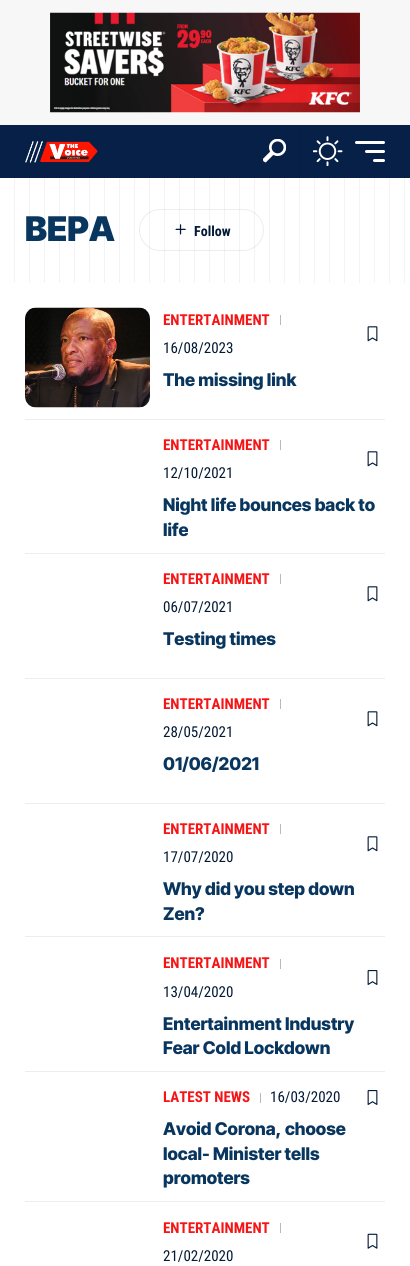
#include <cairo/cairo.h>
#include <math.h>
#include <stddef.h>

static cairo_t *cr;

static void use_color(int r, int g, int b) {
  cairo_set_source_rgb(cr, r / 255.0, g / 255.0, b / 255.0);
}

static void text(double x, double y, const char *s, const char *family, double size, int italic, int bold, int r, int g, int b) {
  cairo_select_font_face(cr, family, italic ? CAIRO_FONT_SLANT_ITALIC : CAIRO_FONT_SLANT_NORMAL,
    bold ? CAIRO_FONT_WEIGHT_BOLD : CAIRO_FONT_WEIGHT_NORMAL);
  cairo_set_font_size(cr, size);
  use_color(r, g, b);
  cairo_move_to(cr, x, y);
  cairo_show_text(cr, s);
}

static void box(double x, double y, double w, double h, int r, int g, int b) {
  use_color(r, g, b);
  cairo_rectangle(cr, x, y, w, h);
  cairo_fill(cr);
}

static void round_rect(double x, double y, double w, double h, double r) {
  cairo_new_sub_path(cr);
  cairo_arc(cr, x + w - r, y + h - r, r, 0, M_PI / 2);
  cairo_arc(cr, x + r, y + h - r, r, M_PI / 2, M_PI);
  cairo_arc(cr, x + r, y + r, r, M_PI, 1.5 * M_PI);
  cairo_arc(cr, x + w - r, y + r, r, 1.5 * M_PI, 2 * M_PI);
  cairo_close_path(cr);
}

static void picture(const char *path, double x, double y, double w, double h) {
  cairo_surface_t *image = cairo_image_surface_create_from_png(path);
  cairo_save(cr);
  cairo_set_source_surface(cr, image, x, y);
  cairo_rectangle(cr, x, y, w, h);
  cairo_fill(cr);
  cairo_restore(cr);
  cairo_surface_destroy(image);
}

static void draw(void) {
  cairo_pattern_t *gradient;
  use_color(255, 255, 255);
  cairo_paint(cr);
  box(0, 0, 410, 125, 247, 247, 247);
  picture("img_01.png", 50, 12, 310, 101);
  box(0, 125, 410, 53, 6, 32, 71);
  picture("img_02.png", 25, 141, 73, 22);
  picture("img_03.png", 263, 139, 23, 24);
  box(299, 131, 1, 40, 6, 29, 65);
  picture("img_04.png", 313, 136, 30, 30);
  use_color(255, 255, 255);
  round_rect(355, 141, 30, 3, 1.5);
  cairo_fill(cr);
  round_rect(365, 150, 20, 3, 1.5);
  cairo_fill(cr);
  round_rect(373, 159, 12, 3, 1.5);
  cairo_fill(cr);
  gradient = cairo_pattern_create_linear(30, 193, 0, 193);
  cairo_pattern_add_color_stop_rgba(gradient, 0, 0.012, 0.098, 0.204, 0.05);
  cairo_pattern_add_color_stop_rgba(gradient, 0.04, 0.012, 0.098, 0.204, 0.05);
  cairo_pattern_add_color_stop_rgba(gradient, 0.04, 0.012, 0.098, 0.204, 0);
  cairo_pattern_add_color_stop_rgba(gradient, 0.5, 0.012, 0.098, 0.204, 0);
  cairo_pattern_add_color_stop_rgba(gradient, 0.5, 0.012, 0.098, 0.204, 0.05);
  cairo_pattern_add_color_stop_rgba(gradient, 0.54, 0.012, 0.098, 0.204, 0.05);
  cairo_pattern_add_color_stop_rgba(gradient, 0.54, 0.012, 0.098, 0.204, 0);
  cairo_pattern_add_color_stop_rgba(gradient, 1, 0, 0, 0, 0);
  cairo_set_source(cr, gradient);
  cairo_pattern_destroy(gradient);
  cairo_rectangle(cr, 14, 178, 16, 105);
  cairo_fill(cr);
  gradient = cairo_pattern_create_linear(60, 193, 30, 193);
  cairo_pattern_add_color_stop_rgba(gradient, 0, 0.012, 0.098, 0.204, 0.05);
  cairo_pattern_add_color_stop_rgba(gradient, 0.04, 0.012, 0.098, 0.204, 0.05);
  cairo_pattern_add_color_stop_rgba(gradient, 0.04, 0.012, 0.098, 0.204, 0);
  cairo_pattern_add_color_stop_rgba(gradient, 0.5, 0.012, 0.098, 0.204, 0);
  cairo_pattern_add_color_stop_rgba(gradient, 0.5, 0.012, 0.098, 0.204, 0.05);
  cairo_pattern_add_color_stop_rgba(gradient, 0.54, 0.012, 0.098, 0.204, 0.05);
  cairo_pattern_add_color_stop_rgba(gradient, 0.54, 0.012, 0.098, 0.204, 0);
  cairo_pattern_add_color_stop_rgba(gradient, 1, 0, 0, 0, 0);
  cairo_set_source(cr, gradient);
  cairo_pattern_destroy(gradient);
  cairo_rectangle(cr, 44, 178, 16, 105);
  cairo_fill(cr);
  gradient = cairo_pattern_create_linear(90, 193, 60, 193);
  cairo_pattern_add_color_stop_rgba(gradient, 0, 0.012, 0.098, 0.204, 0.05);
  cairo_pattern_add_color_stop_rgba(gradient, 0.04, 0.012, 0.098, 0.204, 0.05);
  cairo_pattern_add_color_stop_rgba(gradient, 0.04, 0.012, 0.098, 0.204, 0);
  cairo_pattern_add_color_stop_rgba(gradient, 0.5, 0.012, 0.098, 0.204, 0);
  cairo_pattern_add_color_stop_rgba(gradient, 0.5, 0.012, 0.098, 0.204, 0.05);
  cairo_pattern_add_color_stop_rgba(gradient, 0.54, 0.012, 0.098, 0.204, 0.05);
  cairo_pattern_add_color_stop_rgba(gradient, 0.54, 0.012, 0.098, 0.204, 0);
  cairo_pattern_add_color_stop_rgba(gradient, 1, 0, 0, 0, 0);
  cairo_set_source(cr, gradient);
  cairo_pattern_destroy(gradient);
  cairo_rectangle(cr, 74, 178, 16, 105);
  cairo_fill(cr);
  gradient = cairo_pattern_create_linear(120, 193, 90, 193);
  cairo_pattern_add_color_stop_rgba(gradient, 0, 0.012, 0.098, 0.204, 0.05);
  cairo_pattern_add_color_stop_rgba(gradient, 0.04, 0.012, 0.098, 0.204, 0.05);
  cairo_pattern_add_color_stop_rgba(gradient, 0.04, 0.012, 0.098, 0.204, 0);
  cairo_pattern_add_color_stop_rgba(gradient, 0.5, 0.012, 0.098, 0.204, 0);
  cairo_pattern_add_color_stop_rgba(gradient, 0.5, 0.012, 0.098, 0.204, 0.05);
  cairo_pattern_add_color_stop_rgba(gradient, 0.54, 0.012, 0.098, 0.204, 0.05);
  cairo_pattern_add_color_stop_rgba(gradient, 0.54, 0.012, 0.098, 0.204, 0);
  cairo_pattern_add_color_stop_rgba(gradient, 1, 0, 0, 0, 0);
  cairo_set_source(cr, gradient);
  cairo_pattern_destroy(gradient);
  cairo_rectangle(cr, 104, 178, 16, 105);
  cairo_fill(cr);
  round_rect(139.5, 209.5, 124, 41, 20.5);
  use_color(237, 237, 237);
  cairo_set_line_width(cr, 1);
  cairo_stroke(cr);
  gradient = cairo_pattern_create_linear(150, 193, 120, 193);
  cairo_pattern_add_color_stop_rgba(gradient, 0, 0.012, 0.098, 0.204, 0.05);
  cairo_pattern_add_color_stop_rgba(gradient, 0.04, 0.012, 0.098, 0.204, 0.05);
  cairo_pattern_add_color_stop_rgba(gradient, 0.04, 0.012, 0.098, 0.204, 0);
  cairo_pattern_add_color_stop_rgba(gradient, 0.5, 0.012, 0.098, 0.204, 0);
  cairo_pattern_add_color_stop_rgba(gradient, 0.5, 0.012, 0.098, 0.204, 0.05);
  cairo_pattern_add_color_stop_rgba(gradient, 0.54, 0.012, 0.098, 0.204, 0.05);
  cairo_pattern_add_color_stop_rgba(gradient, 0.54, 0.012, 0.098, 0.204, 0);
  cairo_pattern_add_color_stop_rgba(gradient, 1, 0, 0, 0, 0);
  cairo_set_source(cr, gradient);
  cairo_pattern_destroy(gradient);
  cairo_rectangle(cr, 134, 178, 16, 105);
  cairo_fill(cr);
  picture("img_05.png", 175, 224, 11, 11);
  gradient = cairo_pattern_create_linear(180, 193, 150, 193);
  cairo_pattern_add_color_stop_rgba(gradient, 0, 0.012, 0.098, 0.204, 0.05);
  cairo_pattern_add_color_stop_rgba(gradient, 0.04, 0.012, 0.098, 0.204, 0.05);
  cairo_pattern_add_color_stop_rgba(gradient, 0.04, 0.012, 0.098, 0.204, 0);
  cairo_pattern_add_color_stop_rgba(gradient, 0.5, 0.012, 0.098, 0.204, 0);
  cairo_pattern_add_color_stop_rgba(gradient, 0.5, 0.012, 0.098, 0.204, 0.05);
  cairo_pattern_add_color_stop_rgba(gradient, 0.54, 0.012, 0.098, 0.204, 0.05);
  cairo_pattern_add_color_stop_rgba(gradient, 0.54, 0.012, 0.098, 0.204, 0);
  cairo_pattern_add_color_stop_rgba(gradient, 1, 0, 0, 0, 0);
  cairo_set_source(cr, gradient);
  cairo_pattern_destroy(gradient);
  cairo_rectangle(cr, 164, 178, 16, 105);
  cairo_fill(cr);
  gradient = cairo_pattern_create_linear(210, 193, 180, 193);
  cairo_pattern_add_color_stop_rgba(gradient, 0, 0.012, 0.098, 0.204, 0.05);
  cairo_pattern_add_color_stop_rgba(gradient, 0.04, 0.012, 0.098, 0.204, 0.05);
  cairo_pattern_add_color_stop_rgba(gradient, 0.04, 0.012, 0.098, 0.204, 0);
  cairo_pattern_add_color_stop_rgba(gradient, 0.5, 0.012, 0.098, 0.204, 0);
  cairo_pattern_add_color_stop_rgba(gradient, 0.5, 0.012, 0.098, 0.204, 0.05);
  cairo_pattern_add_color_stop_rgba(gradient, 0.54, 0.012, 0.098, 0.204, 0.05);
  cairo_pattern_add_color_stop_rgba(gradient, 0.54, 0.012, 0.098, 0.204, 0);
  cairo_pattern_add_color_stop_rgba(gradient, 1, 0, 0, 0, 0);
  cairo_set_source(cr, gradient);
  cairo_pattern_destroy(gradient);
  cairo_rectangle(cr, 194, 178, 16, 105);
  cairo_fill(cr);
  gradient = cairo_pattern_create_linear(240, 193, 210, 193);
  cairo_pattern_add_color_stop_rgba(gradient, 0, 0.012, 0.098, 0.204, 0.05);
  cairo_pattern_add_color_stop_rgba(gradient, 0.04, 0.012, 0.098, 0.204, 0.05);
  cairo_pattern_add_color_stop_rgba(gradient, 0.04, 0.012, 0.098, 0.204, 0);
  cairo_pattern_add_color_stop_rgba(gradient, 0.5, 0.012, 0.098, 0.204, 0);
  cairo_pattern_add_color_stop_rgba(gradient, 0.5, 0.012, 0.098, 0.204, 0.05);
  cairo_pattern_add_color_stop_rgba(gradient, 0.54, 0.012, 0.098, 0.204, 0.05);
  cairo_pattern_add_color_stop_rgba(gradient, 0.54, 0.012, 0.098, 0.204, 0);
  cairo_pattern_add_color_stop_rgba(gradient, 1, 0, 0, 0, 0);
  cairo_set_source(cr, gradient);
  cairo_pattern_destroy(gradient);
  cairo_rectangle(cr, 224, 178, 16, 105);
  cairo_fill(cr);
  gradient = cairo_pattern_create_linear(270, 193, 240, 193);
  cairo_pattern_add_color_stop_rgba(gradient, 0, 0.012, 0.098, 0.204, 0.05);
  cairo_pattern_add_color_stop_rgba(gradient, 0.04, 0.012, 0.098, 0.204, 0.05);
  cairo_pattern_add_color_stop_rgba(gradient, 0.04, 0.012, 0.098, 0.204, 0);
  cairo_pattern_add_color_stop_rgba(gradient, 0.5, 0.012, 0.098, 0.204, 0);
  cairo_pattern_add_color_stop_rgba(gradient, 0.5, 0.012, 0.098, 0.204, 0.05);
  cairo_pattern_add_color_stop_rgba(gradient, 0.54, 0.012, 0.098, 0.204, 0.05);
  cairo_pattern_add_color_stop_rgba(gradient, 0.54, 0.012, 0.098, 0.204, 0);
  cairo_pattern_add_color_stop_rgba(gradient, 1, 0, 0, 0, 0);
  cairo_set_source(cr, gradient);
  cairo_pattern_destroy(gradient);
  cairo_rectangle(cr, 254, 178, 16, 105);
  cairo_fill(cr);
  gradient = cairo_pattern_create_linear(300, 193, 270, 193);
  cairo_pattern_add_color_stop_rgba(gradient, 0, 0.949, 0.957, 0.961, 1);
  cairo_pattern_add_color_stop_rgba(gradient, 0.04, 0.949, 0.957, 0.961, 1);
  cairo_pattern_add_color_stop_rgba(gradient, 0.04, 1, 1, 1, 1);
  cairo_pattern_add_color_stop_rgba(gradient, 0.5, 1, 1, 1, 1);
  cairo_pattern_add_color_stop_rgba(gradient, 0.5, 0.949, 0.957, 0.961, 1);
  cairo_pattern_add_color_stop_rgba(gradient, 0.54, 0.949, 0.957, 0.961, 1);
  cairo_pattern_add_color_stop_rgba(gradient, 0.54, 1, 1, 1, 1);
  cairo_pattern_add_color_stop_rgba(gradient, 1, 1, 1, 1, 1);
  cairo_set_source(cr, gradient);
  cairo_pattern_destroy(gradient);
  cairo_rectangle(cr, 284, 178, 16, 105);
  cairo_fill(cr);
  gradient = cairo_pattern_create_linear(330, 193, 300, 193);
  cairo_pattern_add_color_stop_rgba(gradient, 0, 0.949, 0.957, 0.961, 1);
  cairo_pattern_add_color_stop_rgba(gradient, 0.04, 0.949, 0.957, 0.961, 1);
  cairo_pattern_add_color_stop_rgba(gradient, 0.04, 1, 1, 1, 1);
  cairo_pattern_add_color_stop_rgba(gradient, 0.5, 1, 1, 1, 1);
  cairo_pattern_add_color_stop_rgba(gradient, 0.5, 0.949, 0.957, 0.961, 1);
  cairo_pattern_add_color_stop_rgba(gradient, 0.54, 0.949, 0.957, 0.961, 1);
  cairo_pattern_add_color_stop_rgba(gradient, 0.54, 1, 1, 1, 1);
  cairo_pattern_add_color_stop_rgba(gradient, 1, 1, 1, 1, 1);
  cairo_set_source(cr, gradient);
  cairo_pattern_destroy(gradient);
  cairo_rectangle(cr, 314, 178, 16, 105);
  cairo_fill(cr);
  gradient = cairo_pattern_create_linear(360, 193, 330, 193);
  cairo_pattern_add_color_stop_rgba(gradient, 0, 0.949, 0.957, 0.961, 1);
  cairo_pattern_add_color_stop_rgba(gradient, 0.04, 0.949, 0.957, 0.961, 1);
  cairo_pattern_add_color_stop_rgba(gradient, 0.04, 1, 1, 1, 1);
  cairo_pattern_add_color_stop_rgba(gradient, 0.5, 1, 1, 1, 1);
  cairo_pattern_add_color_stop_rgba(gradient, 0.5, 0.949, 0.957, 0.961, 1);
  cairo_pattern_add_color_stop_rgba(gradient, 0.54, 0.949, 0.957, 0.961, 1);
  cairo_pattern_add_color_stop_rgba(gradient, 0.54, 1, 1, 1, 1);
  cairo_pattern_add_color_stop_rgba(gradient, 1, 1, 1, 1, 1);
  cairo_set_source(cr, gradient);
  cairo_pattern_destroy(gradient);
  cairo_rectangle(cr, 344, 178, 16, 105);
  cairo_fill(cr);
  gradient = cairo_pattern_create_linear(390, 193, 360, 193);
  cairo_pattern_add_color_stop_rgba(gradient, 0, 0.949, 0.957, 0.961, 1);
  cairo_pattern_add_color_stop_rgba(gradient, 0.04, 0.949, 0.957, 0.961, 1);
  cairo_pattern_add_color_stop_rgba(gradient, 0.04, 1, 1, 1, 1);
  cairo_pattern_add_color_stop_rgba(gradient, 0.5, 1, 1, 1, 1);
  cairo_pattern_add_color_stop_rgba(gradient, 0.5, 0.949, 0.957, 0.961, 1);
  cairo_pattern_add_color_stop_rgba(gradient, 0.54, 0.949, 0.957, 0.961, 1);
  cairo_pattern_add_color_stop_rgba(gradient, 0.54, 1, 1, 1, 1);
  cairo_pattern_add_color_stop_rgba(gradient, 1, 1, 1, 1, 1);
  cairo_set_source(cr, gradient);
  cairo_pattern_destroy(gradient);
  cairo_rectangle(cr, 374, 178, 16, 105);
  cairo_fill(cr);
  gradient = cairo_pattern_create_linear(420, 193, 390, 193);
  cairo_pattern_add_color_stop_rgba(gradient, 0, 0.949, 0.957, 0.961, 1);
  cairo_pattern_add_color_stop_rgba(gradient, 0.04, 0.949, 0.957, 0.961, 1);
  cairo_pattern_add_color_stop_rgba(gradient, 0.04, 1, 1, 1, 1);
  cairo_pattern_add_color_stop_rgba(gradient, 0.5, 1, 1, 1, 1);
  cairo_pattern_add_color_stop_rgba(gradient, 0.5, 0.949, 0.957, 0.961, 1);
  cairo_pattern_add_color_stop_rgba(gradient, 0.54, 0.949, 0.957, 0.961, 1);
  cairo_pattern_add_color_stop_rgba(gradient, 0.54, 1, 1, 1, 1);
  cairo_pattern_add_color_stop_rgba(gradient, 1, 1, 1, 1, 1);
  cairo_set_source(cr, gradient);
  cairo_pattern_destroy(gradient);
  cairo_rectangle(cr, 404, 178, 1, 105);
  cairo_fill(cr);
  picture("img_06.png", 25, 307, 125, 101);
  box(280, 315, 1, 10, 179, 186, 194);
  picture("img_07.png", 367, 326, 11, 16);
  box(25, 419, 360, 1, 237, 237, 237);
  box(280, 440, 1, 10, 179, 186, 194);
  picture("img_07.png", 367, 451, 11, 16);
  box(25, 553, 360, 1, 237, 237, 237);
  box(280, 574, 1, 10, 179, 186, 194);
  picture("img_07.png", 367, 586, 11, 16);
  box(25, 678, 360, 1, 237, 237, 237);
  box(280, 699, 1, 10, 179, 186, 194);
  picture("img_07.png", 367, 711, 11, 16);
  box(25, 803, 360, 1, 237, 237, 237);
  box(280, 824, 1, 10, 179, 186, 194);
  picture("img_07.png", 367, 836, 11, 16);
  box(25, 936, 360, 1, 237, 237, 237);
  box(280, 959, 1, 10, 179, 186, 194);
  picture("img_08.png", 367, 970, 11, 15);
  box(25, 1071, 360, 1, 237, 237, 237);
  box(260, 1093, 1, 10, 179, 186, 194);
  picture("img_08.png", 367, 1090, 11, 15);
  box(25, 1201, 360, 1, 237, 237, 237);
  box(280, 1223, 1, 10, 179, 186, 194);
  picture("img_09.png", 367, 1233, 11, 16);
  text(25, 241, "BEPA", "Inter Tight Black", 34, 0, 0, 9, 54, 94);
  text(194, 236, "Follow", "Roboto Condensed", 14, 0, 1, 3, 25, 52);
  text(163, 325, "ENTERTAINMENT", "Roboto Condensed", 15, 0, 1, 245, 20, 22);
  text(163, 353, "16/08/2023", "Roboto Condensed", 15, 0, 0, 3, 25, 52);
  text(163, 386, "The missing link", "Inter Tight ExtraBold", 17.5, 0, 0, 9, 54, 94);
  text(163, 450, "ENTERTAINMENT", "Roboto Condensed", 15, 0, 1, 245, 20, 22);
  text(163, 478, "12/10/2021", "Roboto Condensed", 15, 0, 0, 3, 25, 52);
  text(163, 511, "Night life bounces back to", "Inter Tight ExtraBold", 17.5, 0, 0, 9, 54, 94);
  text(163, 536, "life", "Inter Tight ExtraBold", 17.5, 0, 0, 9, 54, 94);
  text(163, 584, "ENTERTAINMENT", "Roboto Condensed", 15, 0, 1, 245, 20, 22);
  text(163, 612, "06/07/2021", "Roboto Condensed", 15, 0, 0, 3, 25, 52);
  text(163, 645, "Testing times", "Inter Tight ExtraBold", 17.5, 0, 0, 9, 54, 94);
  text(163, 709, "ENTERTAINMENT", "Roboto Condensed", 15, 0, 1, 245, 20, 22);
  text(163, 737, "28/05/2021", "Roboto Condensed", 15, 0, 0, 3, 25, 52);
  text(163, 770, "01/06/2021", "Inter Tight ExtraBold", 17.5, 0, 0, 9, 54, 94);
  text(163, 834, "ENTERTAINMENT", "Roboto Condensed", 15, 0, 1, 245, 20, 22);
  text(163, 862, "17/07/2020", "Roboto Condensed", 15, 0, 0, 3, 25, 52);
  text(163, 895, "Why did you step down", "Inter Tight ExtraBold", 17.5, 0, 0, 9, 54, 94);
  text(163, 920, "Zen?", "Inter Tight ExtraBold", 17.5, 0, 0, 9, 54, 94);
  text(163, 968, "ENTERTAINMENT", "Roboto Condensed", 15, 0, 1, 245, 20, 22);
  text(163, 997, "13/04/2020", "Roboto Condensed", 15, 0, 0, 3, 25, 52);
  text(163, 1030, "Entertainment Industry", "Inter Tight ExtraBold", 17.5, 0, 0, 9, 54, 94);
  text(163, 1054, "Fear Cold Lockdown", "Inter Tight ExtraBold", 17.5, 0, 0, 9, 54, 94);
  text(163, 1102, "LATEST NEWS", "Roboto Condensed", 15, 0, 1, 245, 20, 22);
  text(270, 1102, "16/03/2020", "Roboto Condensed", 15, 0, 0, 3, 25, 52);
  text(163, 1135, "Avoid Corona, choose", "Inter Tight ExtraBold", 17.5, 0, 0, 9, 54, 94);
  text(163, 1160, "local- Minister tells", "Inter Tight ExtraBold", 17.5, 0, 0, 9, 54, 94);
  text(163, 1184, "promoters", "Inter Tight ExtraBold", 17.5, 0, 0, 9, 54, 94);
  text(163, 1233, "ENTERTAINMENT", "Roboto Condensed", 15, 0, 1, 245, 20, 22);
  text(163, 1261, "21/02/2020", "Roboto Condensed", 15, 0, 0, 3, 25, 52);
}

int main(void) {
  cairo_surface_t *surface = cairo_image_surface_create(CAIRO_FORMAT_RGB24, 410, 1266);
  cr = cairo_create(surface);
  cairo_font_options_t *options = cairo_font_options_create();
  cairo_font_options_set_hint_metrics(options, CAIRO_HINT_METRICS_OFF);
  cairo_font_options_set_hint_style(options, CAIRO_HINT_STYLE_NONE);
  cairo_set_font_options(cr, options);
  cairo_set_miter_limit(cr, 4);
  draw();
  cairo_surface_write_to_png(surface, "out.png");
  cairo_font_options_destroy(options);
  cairo_destroy(cr);
  cairo_surface_destroy(surface);
  return 0;
}
